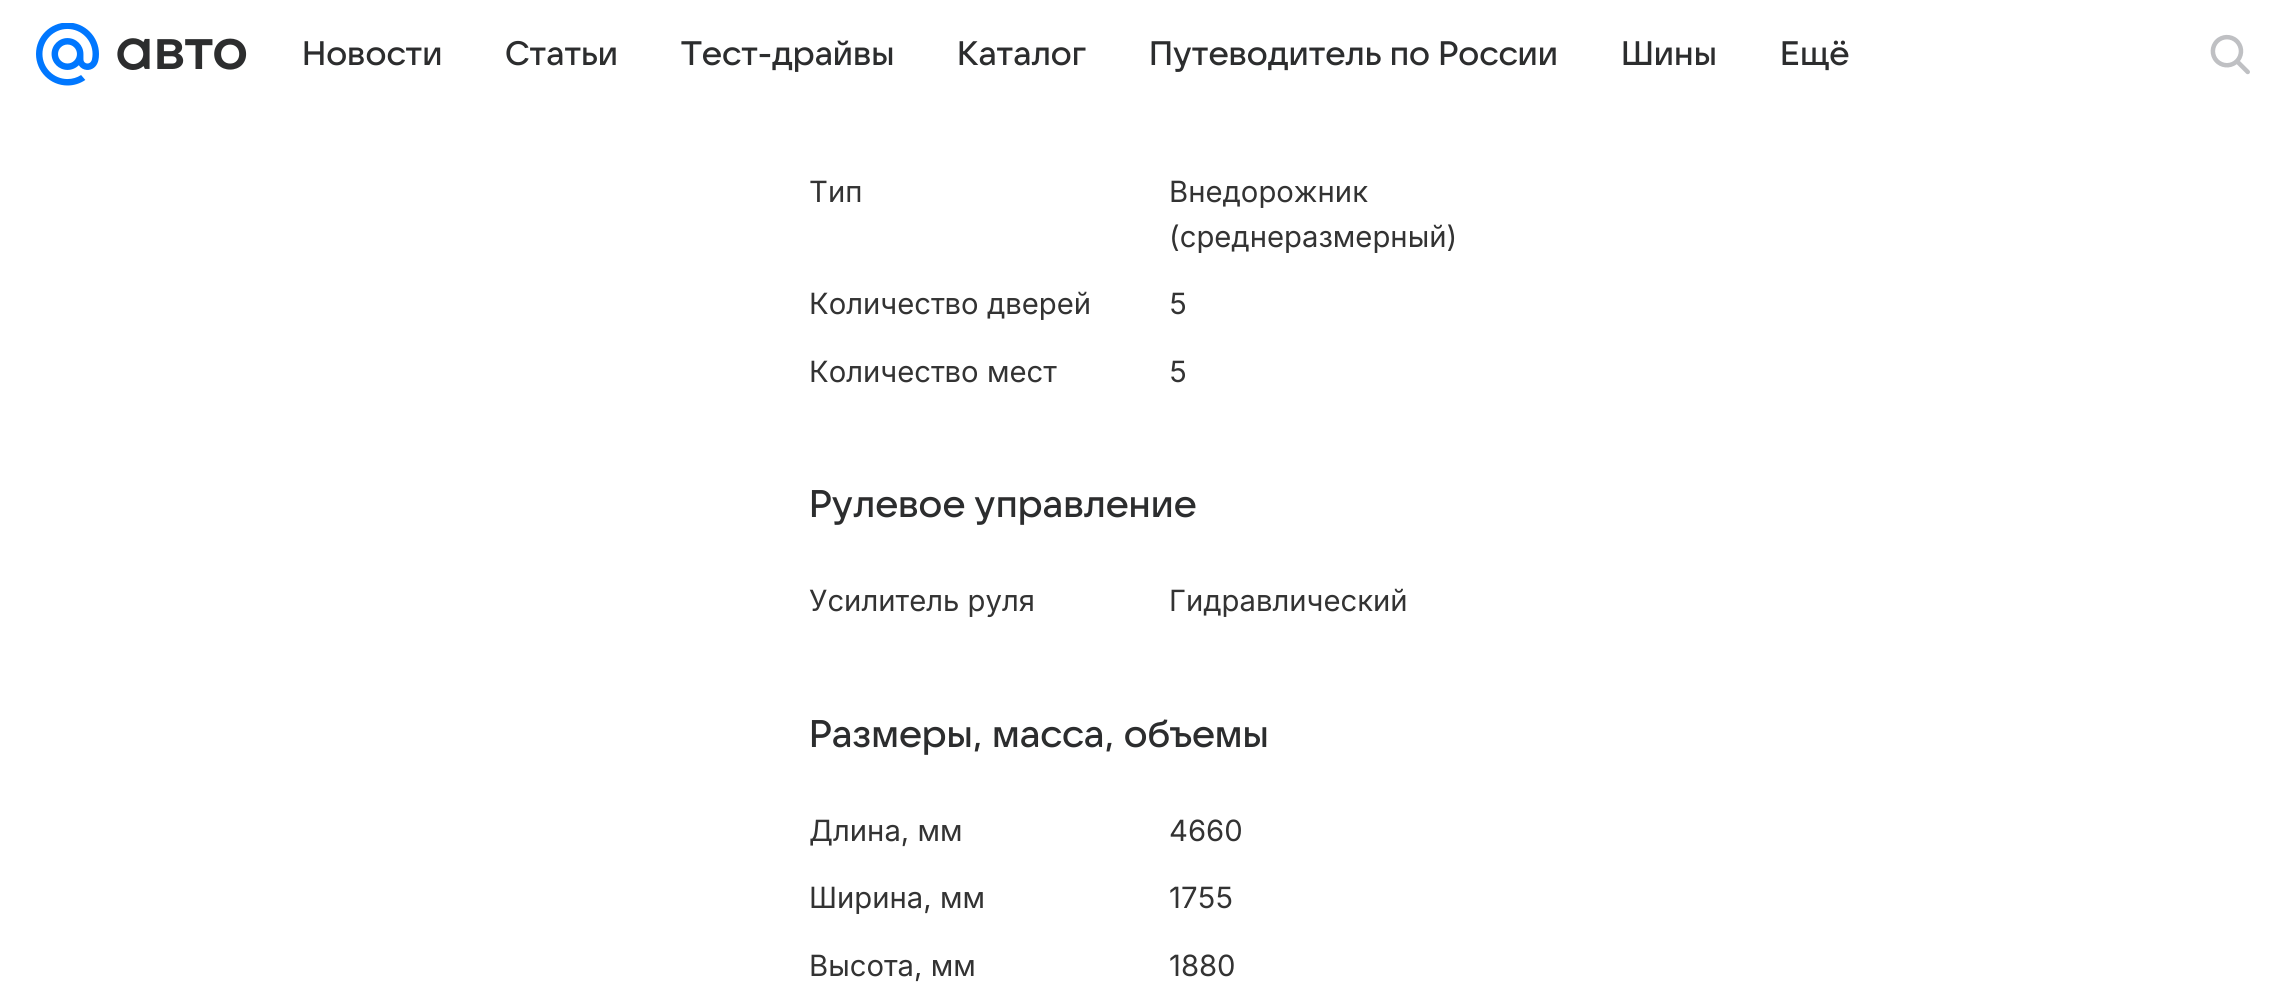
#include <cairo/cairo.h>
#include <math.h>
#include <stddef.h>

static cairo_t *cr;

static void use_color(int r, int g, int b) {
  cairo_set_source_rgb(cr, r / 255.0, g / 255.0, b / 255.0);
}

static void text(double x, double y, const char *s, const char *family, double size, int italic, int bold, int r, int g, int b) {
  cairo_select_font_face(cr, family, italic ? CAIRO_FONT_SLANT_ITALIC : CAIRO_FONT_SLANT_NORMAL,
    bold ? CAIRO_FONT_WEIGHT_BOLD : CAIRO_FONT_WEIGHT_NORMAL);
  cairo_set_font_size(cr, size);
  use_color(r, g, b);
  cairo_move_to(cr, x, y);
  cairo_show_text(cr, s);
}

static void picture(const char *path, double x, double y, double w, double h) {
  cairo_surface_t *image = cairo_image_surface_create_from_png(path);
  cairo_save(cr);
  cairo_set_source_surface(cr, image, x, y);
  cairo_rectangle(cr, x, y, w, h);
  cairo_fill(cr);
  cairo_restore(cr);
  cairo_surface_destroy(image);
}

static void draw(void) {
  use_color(255, 255, 255);
  cairo_paint(cr);
  picture("img_01.png", 36, 23, 63, 63);
  picture("img_02.png", 117, 38, 130, 32);
  picture("img_03.png", 2210, 34, 40, 41);
  text(302, 65, "Новости", "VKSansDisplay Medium", 33.75, 0, 0, 44, 45, 46);
  text(505, 65, "Статьи", "VKSansDisplay Medium", 33.75, 0, 0, 44, 45, 46);
  text(681, 65, "Тест-драйвы", "VKSansDisplay Medium", 33.75, 0, 0, 44, 45, 46);
  text(957, 65, "Каталог", "VKSansDisplay Medium", 33.75, 0, 0, 44, 45, 46);
  text(1149, 65, "Путеводитель по России", "VKSansDisplay Medium", 33.75, 0, 0, 44, 45, 46);
  text(1621, 65, "Шины", "VKSansDisplay Medium", 33.75, 0, 0, 44, 45, 46);
  text(1780, 65, "Ещё", "VKSansDisplay Medium", 33.75, 0, 0, 44, 45, 46);
  text(809, 202, "Тип", "Inter", 29.25, 0, 0, 51, 51, 51);
  text(1169, 202, "Внедорожник", "Inter", 29.25, 0, 0, 51, 51, 51);
  text(1169, 247, "(среднеразмерный)", "Inter", 29.25, 0, 0, 51, 51, 51);
  text(809, 314, "Количество дверей", "Inter", 29.25, 0, 0, 51, 51, 51);
  text(1169, 314, "5", "Inter", 29.25, 0, 0, 51, 51, 51);
  text(809, 382, "Количество мест", "Inter", 29.25, 0, 0, 51, 51, 51);
  text(1169, 382, "5", "Inter", 29.25, 0, 0, 51, 51, 51);
  text(809, 517, "Рулевое управление", "VKSansDisplay Medium", 38.25, 0, 0, 44, 45, 46);
  text(809, 611, "Усилитель руля", "Inter", 29.25, 0, 0, 51, 51, 51);
  text(1169, 611, "Гидравлический", "Inter", 29.25, 0, 0, 51, 51, 51);
  text(809, 747, "Размеры, масса, объемы", "VKSansDisplay Medium", 38.25, 0, 0, 44, 45, 46);
  text(809, 841, "Длина, мм", "Inter", 29.25, 0, 0, 51, 51, 51);
  text(1169, 841, "4660", "Inter", 29.25, 0, 0, 51, 51, 51);
  text(809, 908, "Ширина, мм", "Inter", 29.25, 0, 0, 51, 51, 51);
  text(1169, 908, "1755", "Inter", 29.25, 0, 0, 51, 51, 51);
  text(809, 976, "Высота, мм", "Inter", 29.25, 0, 0, 51, 51, 51);
  text(1169, 976, "1880", "Inter", 29.25, 0, 0, 51, 51, 51);
}

int main(void) {
  cairo_surface_t *surface = cairo_image_surface_create(CAIRO_FORMAT_RGB24, 2291, 1003);
  cr = cairo_create(surface);
  cairo_font_options_t *options = cairo_font_options_create();
  cairo_font_options_set_hint_metrics(options, CAIRO_HINT_METRICS_OFF);
  cairo_font_options_set_hint_style(options, CAIRO_HINT_STYLE_NONE);
  cairo_set_font_options(cr, options);
  cairo_set_miter_limit(cr, 4);
  draw();
  cairo_surface_write_to_png(surface, "out.png");
  cairo_font_options_destroy(options);
  cairo_destroy(cr);
  cairo_surface_destroy(surface);
  return 0;
}
